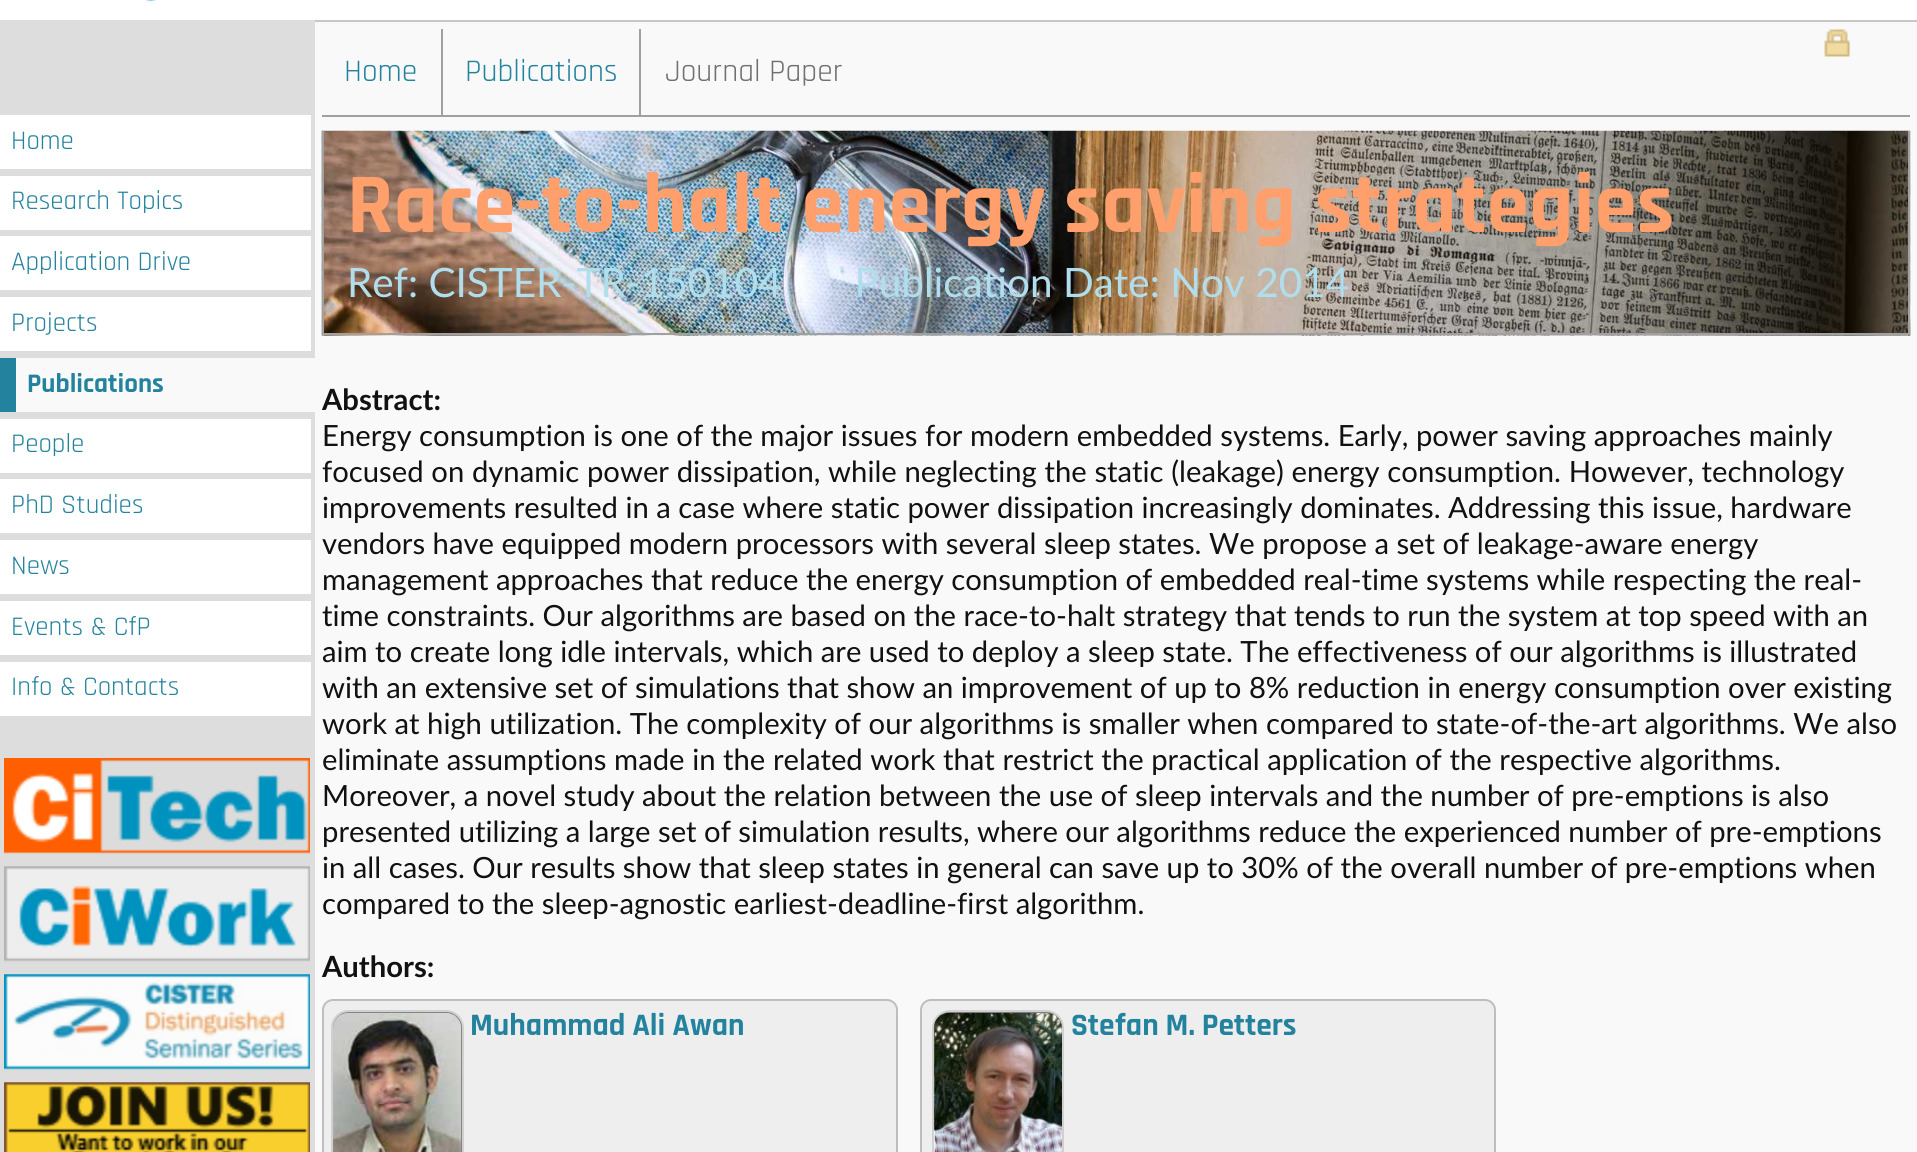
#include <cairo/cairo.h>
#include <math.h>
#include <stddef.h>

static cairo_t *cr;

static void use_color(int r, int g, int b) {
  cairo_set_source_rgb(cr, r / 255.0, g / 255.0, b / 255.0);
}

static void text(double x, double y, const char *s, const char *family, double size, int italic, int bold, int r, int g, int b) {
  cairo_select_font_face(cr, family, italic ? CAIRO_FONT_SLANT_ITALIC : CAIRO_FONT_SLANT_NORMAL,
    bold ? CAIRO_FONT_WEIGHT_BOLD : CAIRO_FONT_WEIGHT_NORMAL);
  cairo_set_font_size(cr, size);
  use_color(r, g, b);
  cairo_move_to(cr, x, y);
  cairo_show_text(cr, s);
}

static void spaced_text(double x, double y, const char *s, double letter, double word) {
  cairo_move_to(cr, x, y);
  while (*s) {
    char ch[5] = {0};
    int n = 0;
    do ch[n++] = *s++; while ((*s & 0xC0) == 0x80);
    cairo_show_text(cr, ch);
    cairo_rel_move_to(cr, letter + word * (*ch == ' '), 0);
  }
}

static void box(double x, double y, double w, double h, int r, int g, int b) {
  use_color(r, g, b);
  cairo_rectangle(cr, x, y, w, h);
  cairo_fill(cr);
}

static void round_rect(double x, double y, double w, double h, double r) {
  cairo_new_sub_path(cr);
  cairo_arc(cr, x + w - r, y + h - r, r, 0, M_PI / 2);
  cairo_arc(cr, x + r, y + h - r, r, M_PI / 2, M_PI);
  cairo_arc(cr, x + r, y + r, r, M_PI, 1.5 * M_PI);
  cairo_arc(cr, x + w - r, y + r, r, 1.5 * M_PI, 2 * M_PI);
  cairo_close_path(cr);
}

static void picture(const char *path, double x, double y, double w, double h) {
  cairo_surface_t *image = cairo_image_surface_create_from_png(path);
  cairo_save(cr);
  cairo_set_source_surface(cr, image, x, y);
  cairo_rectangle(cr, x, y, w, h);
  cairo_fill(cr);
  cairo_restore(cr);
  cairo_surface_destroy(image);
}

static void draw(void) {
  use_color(221, 221, 221);
  cairo_paint(cr);
  box(0, 0, 1917, 20, 255, 255, 255);
  picture("img_01.png", 145, 0, 12, 3);
  box(0, 115, 311, 54, 255, 255, 255);
  box(0, 176, 311, 54, 255, 255, 255);
  box(0, 236, 311, 54, 255, 255, 255);
  box(0, 297, 311, 54, 255, 255, 255);
  box(16, 358, 299, 54, 249, 249, 249);
  box(0, 358, 16, 54, 35, 131, 158);
  box(0, 419, 311, 54, 255, 255, 255);
  box(0, 479, 311, 54, 255, 255, 255);
  box(0, 540, 311, 54, 255, 255, 255);
  box(0, 601, 311, 54, 255, 255, 255);
  box(0, 662, 311, 54, 255, 255, 255);
  picture("img_02.png", 4, 758, 306, 96);
  picture("img_03.png", 4, 866, 306, 96);
  picture("img_04.png", 4, 974, 306, 96);
  picture("img_05.png", 4, 1082, 306, 70);
  box(315, 22, 1602, 1130, 249, 249, 249);
  box(315, 20, 1602, 2, 199, 199, 199);
  picture("img_06.png", 1824, 29, 27, 28);
  box(322, 115, 1588, 2, 160, 160, 160);
  box(441, 29, 2, 86, 160, 160, 160);
  box(639, 29, 2, 86, 160, 160, 160);
  picture("img_07.png", 321, 130, 1590, 206);
  box(1908, 131, 2, 204, 160, 160, 160);
  box(322, 333, 1588, 2, 160, 160, 160);
  box(322, 131, 2, 204, 160, 160, 160);
  use_color(238, 238, 238);
  round_rect(322, 999, 576, 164, 11);
  cairo_fill(cr);
  round_rect(323, 1000, 574, 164, 10);
  cairo_set_source_rgba(cr, 0, 0, 0, 0.2);
  cairo_stroke(cr);
  use_color(128, 128, 128);
  round_rect(332, 1011, 131, 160, 17);
  cairo_fill_preserve(cr);
  use_color(208, 208, 208);
  cairo_stroke(cr);
  picture("img_08.png", 333, 1012, 129, 140);
  use_color(238, 238, 238);
  round_rect(920, 999, 576, 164, 11);
  cairo_fill(cr);
  round_rect(921, 1000, 574, 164, 10);
  cairo_set_source_rgba(cr, 0, 0, 0, 0.2);
  cairo_stroke(cr);
  use_color(128, 128, 128);
  round_rect(933, 1011, 130, 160, 17);
  cairo_fill_preserve(cr);
  use_color(208, 208, 208);
  cairo_stroke(cr);
  picture("img_09.png", 933, 1012, 129, 140);
  text(11, 149, "Home", "Rajdhani", 27, 0, 0, 35, 131, 158);
  text(11, 209, "Research Topics", "Rajdhani", 27, 0, 0, 35, 131, 158);
  text(11, 270, "Application Drive", "Rajdhani", 27, 0, 0, 35, 131, 158);
  text(11, 331, "Projects", "Rajdhani", 27, 0, 0, 35, 131, 158);
  text(27, 392, "Publications", "Rajdhani", 27, 0, 1, 35, 131, 158);
  text(11, 452, "People", "Rajdhani", 27, 0, 0, 35, 131, 158);
  text(11, 513, "PhD Studies", "Rajdhani", 27, 0, 0, 35, 131, 158);
  text(11, 574, "News", "Rajdhani", 27, 0, 0, 35, 131, 158);
  text(11, 635, "Events & CfP", "Rajdhani", 27, 0, 0, 35, 131, 158);
  text(11, 695, "Info & Contacts", "Rajdhani", 27, 0, 0, 35, 131, 158);
  text(344, 81, "Home", "Rajdhani", 31.5, 0, 0, 35, 131, 158);
  text(465, 81, "Publications", "Rajdhani", 31.5, 0, 0, 35, 131, 158);
  text(665, 81, "Journal Paper", "Rajdhani", 31.5, 0, 0, 112, 112, 112);
  text(347, 232, "Race-to-halt energy saving strategies", "Rajdhani", 85.5, 0, 1, 255, 160, 108);
  text(347, 297, "Ref: CISTER-TR-150104       Publication Date: Nov 2014", "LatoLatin", 40.5, 0, 0, 176, 222, 236);
  text(322, 410, "Abstract:", "LatoLatin", 29.25, 0, 1, 17, 17, 17);
  text(322, 446, "Energy consumption is one of the major issues for modern embedded systems. Early, power saving approaches mainly", "LatoLatin", 29.25, 0, 0, 17, 17, 17);
  spaced_text(322, 482, "focused on dynamic power dissipation, while neglecting the static (leakage) energy consumption. However, technology", 0, 0.2);
  text(322, 518, "improvements resulted in a case where static power dissipation increasingly dominates. Addressing this issue, hardware", "LatoLatin", 29.25, 0, 0, 17, 17, 17);
  text(322, 554, "vendors have equipped modern processors with several sleep states. We propose a set of leakage-aware energy", "LatoLatin", 29.25, 0, 0, 17, 17, 17);
  text(322, 590, "management approaches that reduce the energy consumption of embedded real-time systems while respecting the real-", "LatoLatin", 29.25, 0, 0, 17, 17, 17);
  text(322, 626, "time constraints. Our algorithms are based on the race-to-halt strategy that tends to run the system at top speed with an", "LatoLatin", 29.25, 0, 0, 17, 17, 17);
  text(322, 662, "aim to create long idle intervals, which are used to deploy a sleep state. The effectiveness of our algorithms is illustrated", "LatoLatin", 29.25, 0, 0, 17, 17, 17);
  text(322, 698, "with an extensive set of simulations that show an improvement of up to 8% reduction in energy consumption over existing", "LatoLatin", 29.25, 0, 0, 17, 17, 17);
  text(322, 734, "work at high utilization. The complexity of our algorithms is smaller when compared to state-of-the-art algorithms. We also", "LatoLatin", 29.25, 0, 0, 17, 17, 17);
  spaced_text(322, 770, "eliminate assumptions made in the related work that restrict the practical application of the respective algorithms.", 0, 0.1);
  text(322, 806, "Moreover, a novel study about the relation between the use of sleep intervals and the number of pre-emptions is also", "LatoLatin", 29.25, 0, 0, 17, 17, 17);
  text(322, 842, "presented utilizing a large set of simulation results, where our algorithms reduce the experienced number of pre-emptions", "LatoLatin", 29.25, 0, 0, 17, 17, 17);
  text(322, 878, "in all cases. Our results show that sleep states in general can save up to 30% of the overall number of pre-emptions when", "LatoLatin", 29.25, 0, 0, 17, 17, 17);
  text(322, 914, "compared to the sleep-agnostic earliest-deadline-first algorithm.", "LatoLatin", 29.25, 0, 0, 17, 17, 17);
  text(322, 977, "Authors:", "LatoLatin", 29.25, 0, 1, 17, 17, 17);
  text(470, 1035, "Muhammad Ali Awan", "Rajdhani", 31.5, 0, 1, 35, 131, 158);
  text(1071, 1035, "Stefan M. Petters", "Rajdhani", 31.5, 0, 1, 35, 131, 158);
}

int main(void) {
  cairo_surface_t *surface = cairo_image_surface_create(CAIRO_FORMAT_RGB24, 1917, 1152);
  cr = cairo_create(surface);
  cairo_font_options_t *options = cairo_font_options_create();
  cairo_font_options_set_hint_metrics(options, CAIRO_HINT_METRICS_OFF);
  cairo_font_options_set_hint_style(options, CAIRO_HINT_STYLE_NONE);
  cairo_set_font_options(cr, options);
  cairo_set_miter_limit(cr, 4);
  draw();
  cairo_surface_write_to_png(surface, "out.png");
  cairo_font_options_destroy(options);
  cairo_destroy(cr);
  cairo_surface_destroy(surface);
  return 0;
}
